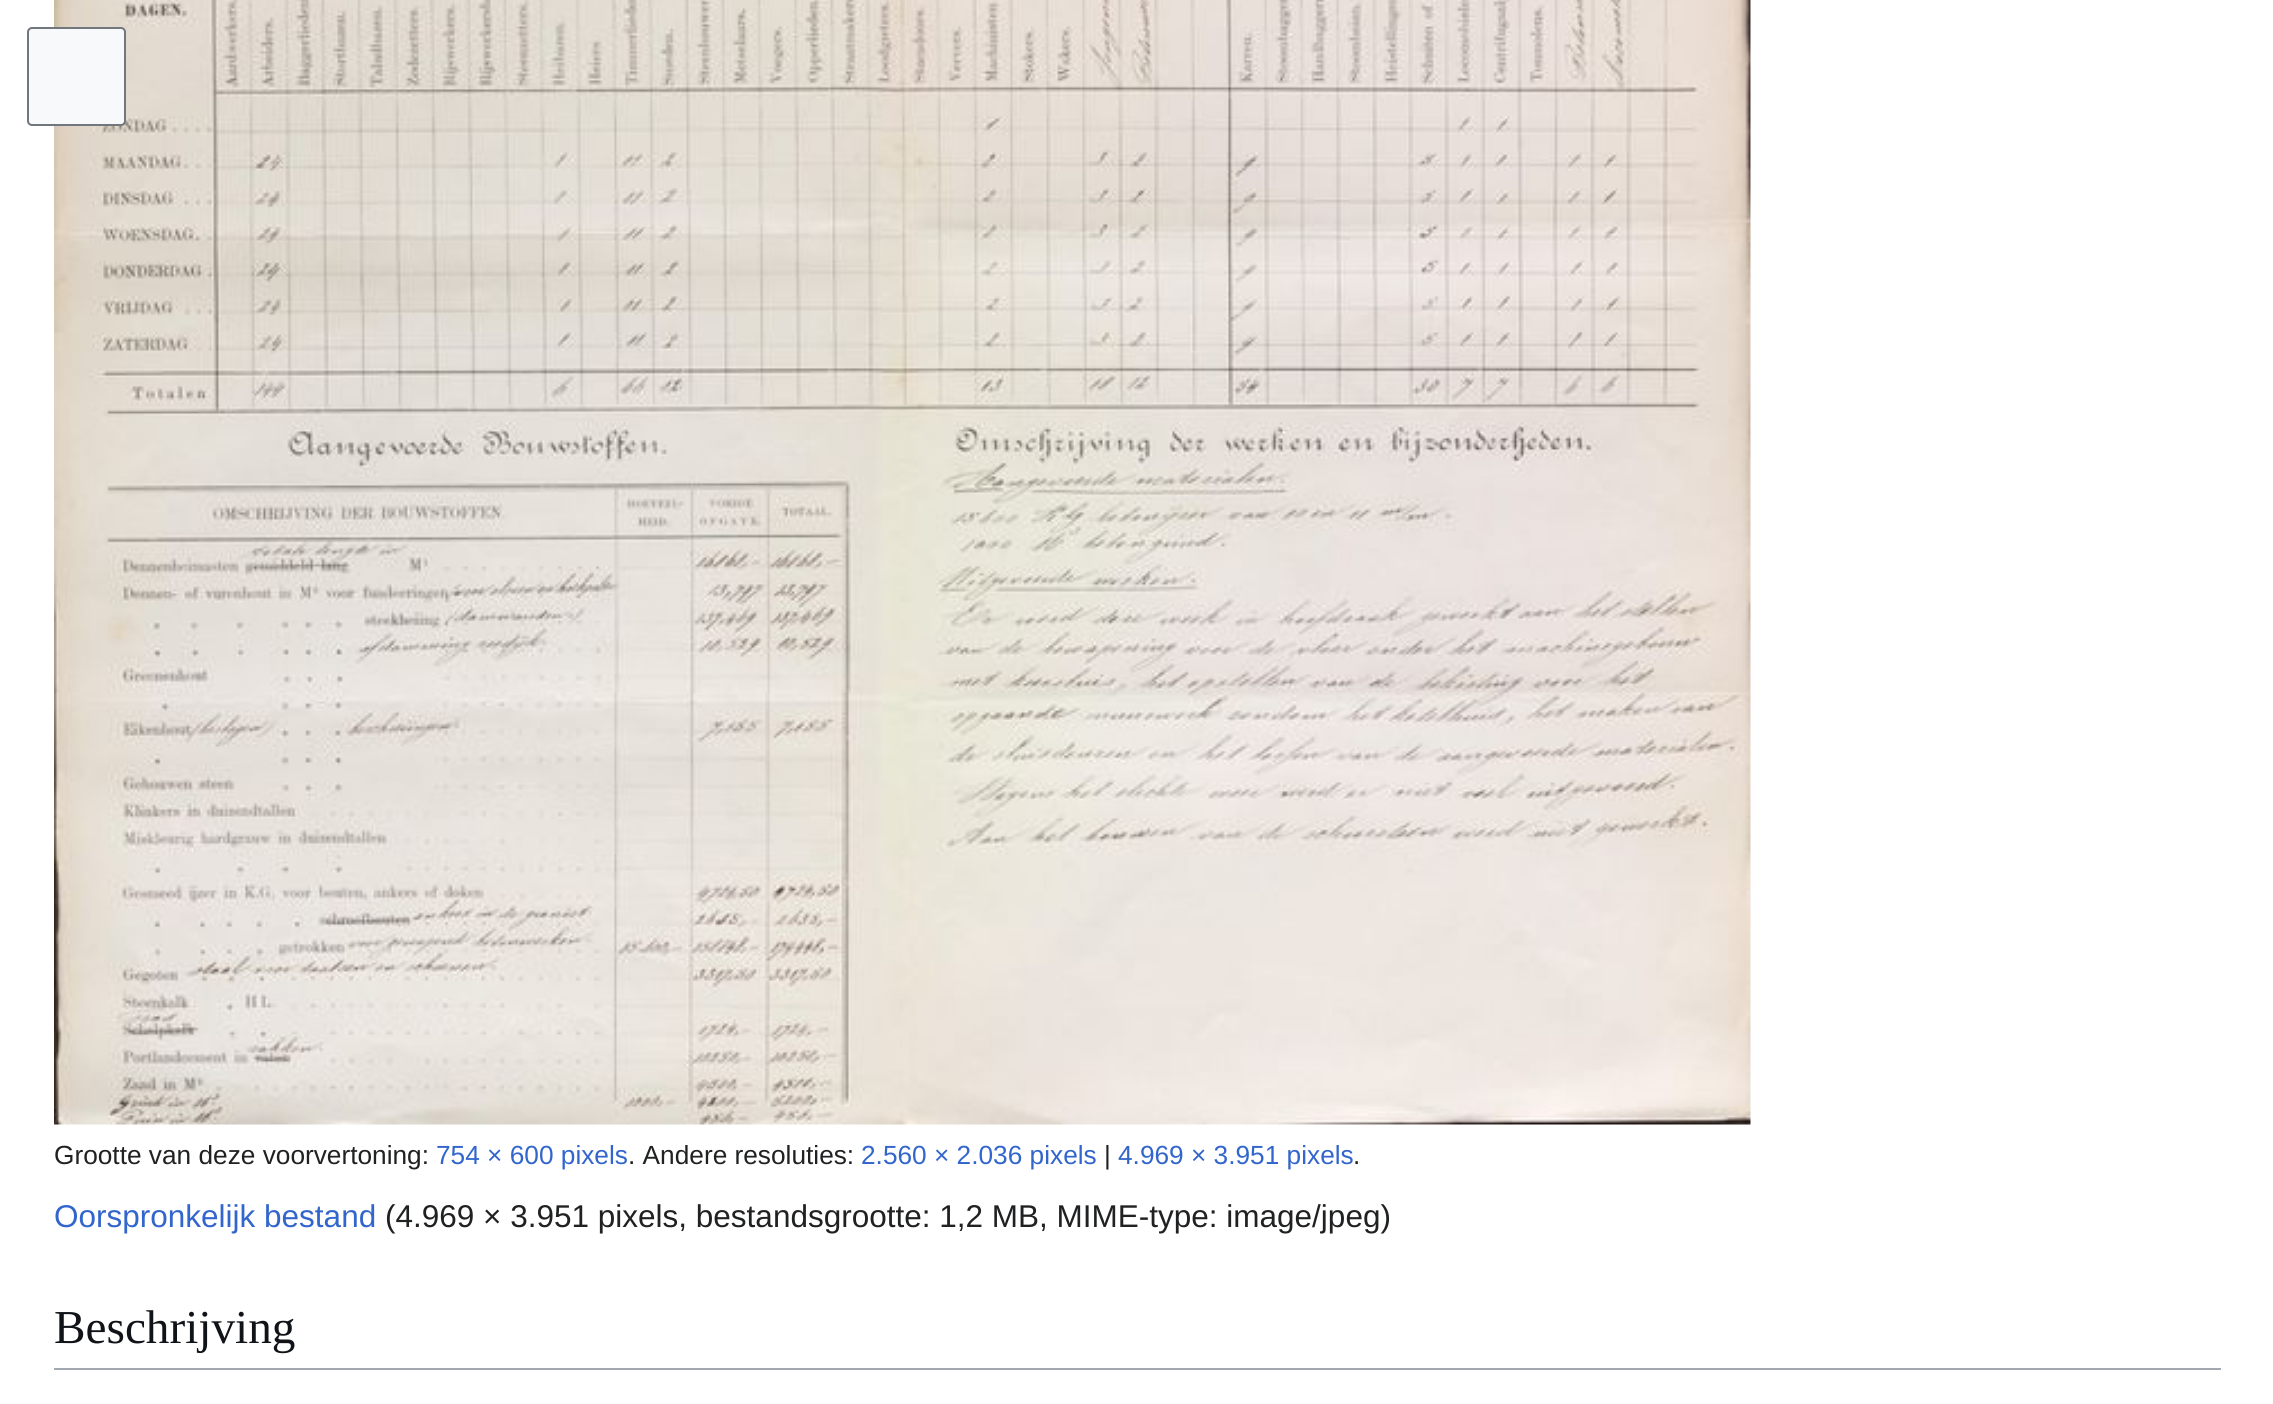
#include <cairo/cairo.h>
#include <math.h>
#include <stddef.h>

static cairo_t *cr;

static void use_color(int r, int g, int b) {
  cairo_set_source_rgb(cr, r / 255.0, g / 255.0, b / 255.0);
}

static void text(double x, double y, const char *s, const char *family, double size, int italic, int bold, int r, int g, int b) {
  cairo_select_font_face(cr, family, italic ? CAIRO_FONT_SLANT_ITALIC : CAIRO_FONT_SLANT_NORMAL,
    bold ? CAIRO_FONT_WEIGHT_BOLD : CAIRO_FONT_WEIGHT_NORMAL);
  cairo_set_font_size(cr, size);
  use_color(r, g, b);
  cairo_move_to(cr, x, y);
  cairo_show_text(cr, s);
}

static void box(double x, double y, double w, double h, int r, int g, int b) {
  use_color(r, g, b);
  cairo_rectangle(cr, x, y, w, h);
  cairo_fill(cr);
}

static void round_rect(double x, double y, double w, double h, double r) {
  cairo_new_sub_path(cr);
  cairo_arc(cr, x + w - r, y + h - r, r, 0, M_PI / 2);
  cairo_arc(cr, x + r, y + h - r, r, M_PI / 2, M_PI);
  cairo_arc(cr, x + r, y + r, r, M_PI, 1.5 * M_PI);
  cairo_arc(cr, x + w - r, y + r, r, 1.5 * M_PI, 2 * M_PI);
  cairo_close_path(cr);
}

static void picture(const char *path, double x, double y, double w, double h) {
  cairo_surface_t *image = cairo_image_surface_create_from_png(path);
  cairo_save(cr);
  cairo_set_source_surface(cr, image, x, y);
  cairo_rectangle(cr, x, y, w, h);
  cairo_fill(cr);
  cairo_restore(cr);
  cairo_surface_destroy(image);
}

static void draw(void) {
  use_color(255, 255, 255);
  cairo_paint(cr);
  picture("img_01.png", 54, 0, 1697, 1125);
  use_color(248, 249, 250);
  round_rect(28, 28, 97, 97, 4);
  cairo_fill_preserve(cr);
  use_color(114, 119, 125);
  cairo_stroke(cr);
  box(54, 1368, 2167, 2, 162, 169, 177);
  text(54, 1164, "Grootte van deze voorvertoning:", "Liberation Sans", 26.25, 0, 0, 32, 33, 34);
  text(436, 1164, "754 × 600 pixels", "Liberation Sans", 26.25, 0, 0, 51, 102, 204);
  text(628, 1164, ". Andere resoluties:", "Liberation Sans", 26.25, 0, 0, 32, 33, 34);
  text(861, 1164, "2.560 × 2.036 pixels", "Liberation Sans", 26.25, 0, 0, 51, 102, 204);
  text(1104, 1164, "|", "Liberation Sans", 26.25, 0, 0, 32, 33, 34);
  text(1118, 1164, "4.969 × 3.951 pixels", "Liberation Sans", 26.25, 0, 0, 51, 102, 204);
  text(1353, 1164, ".", "Liberation Sans", 26.25, 0, 0, 32, 33, 34);
  text(54, 1227, "Oorspronkelijk bestand", "Liberation Sans", 31.5, 0, 0, 51, 102, 204);
  text(385, 1227, "(4.969 × 3.951 pixels, bestandsgrootte: 1,2 MB, MIME-type: image/jpeg)", "Liberation Sans", 31.5, 0, 0, 32, 33, 34);
  text(54, 1343, "Beschrijving", "Liberation Serif", 47.25, 0, 0, 16, 20, 24);
}

int main(void) {
  cairo_surface_t *surface = cairo_image_surface_create(CAIRO_FORMAT_RGB24, 2273, 1404);
  cr = cairo_create(surface);
  cairo_font_options_t *options = cairo_font_options_create();
  cairo_font_options_set_hint_metrics(options, CAIRO_HINT_METRICS_OFF);
  cairo_font_options_set_hint_style(options, CAIRO_HINT_STYLE_NONE);
  cairo_set_font_options(cr, options);
  cairo_set_miter_limit(cr, 4);
  draw();
  cairo_surface_write_to_png(surface, "out.png");
  cairo_font_options_destroy(options);
  cairo_destroy(cr);
  cairo_surface_destroy(surface);
  return 0;
}
